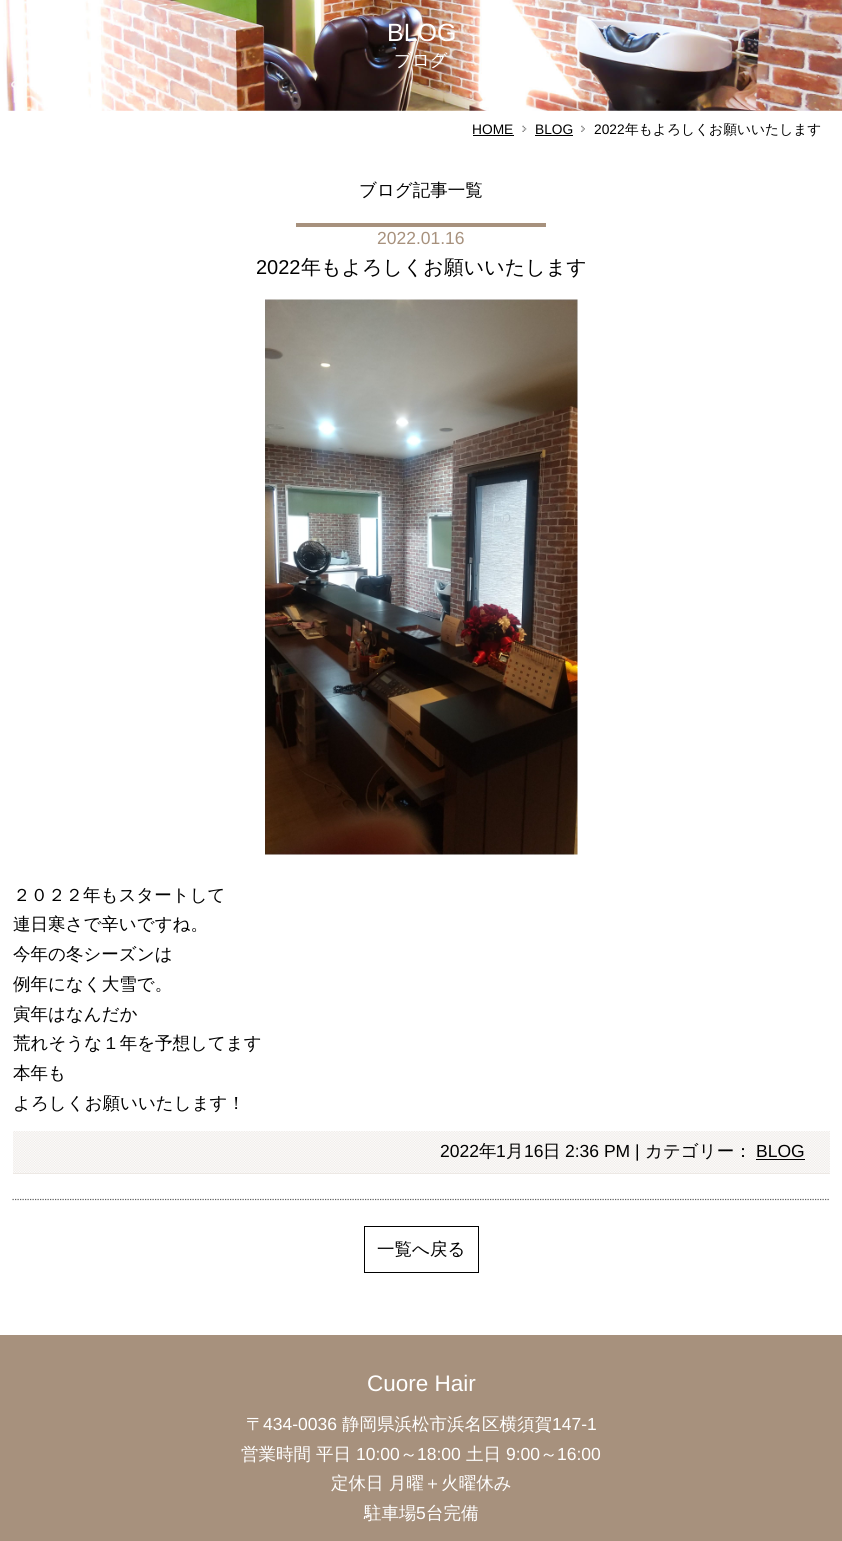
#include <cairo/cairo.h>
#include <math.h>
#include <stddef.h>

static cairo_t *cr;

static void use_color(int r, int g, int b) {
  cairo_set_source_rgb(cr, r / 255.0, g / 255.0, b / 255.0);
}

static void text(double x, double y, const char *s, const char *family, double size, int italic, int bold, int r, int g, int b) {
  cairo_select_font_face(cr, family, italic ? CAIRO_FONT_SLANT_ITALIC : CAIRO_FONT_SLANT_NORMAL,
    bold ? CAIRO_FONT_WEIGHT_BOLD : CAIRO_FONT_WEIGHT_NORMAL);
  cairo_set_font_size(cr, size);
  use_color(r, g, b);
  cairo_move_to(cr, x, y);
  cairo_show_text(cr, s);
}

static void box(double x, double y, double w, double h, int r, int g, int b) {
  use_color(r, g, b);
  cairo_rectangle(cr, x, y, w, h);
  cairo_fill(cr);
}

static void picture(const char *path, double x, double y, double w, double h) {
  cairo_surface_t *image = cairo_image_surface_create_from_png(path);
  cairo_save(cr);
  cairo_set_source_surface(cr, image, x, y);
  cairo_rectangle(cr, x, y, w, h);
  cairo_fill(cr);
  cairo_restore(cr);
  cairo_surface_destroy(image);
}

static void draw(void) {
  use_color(255, 255, 255);
  cairo_paint(cr);
  picture("img_01.png", 0, 0, 842, 111);
  box(473, 135, 41, 1, 0, 0, 0);
  picture("img_02.png", 522, 125, 5, 7);
  box(535, 135, 38, 1, 0, 0, 0);
  picture("img_03.png", 581, 125, 4, 7);
  box(296, 223, 250, 4, 167, 145, 125);
  picture("img_04.png", 265, 299, 313, 556);
  box(13, 1131, 817, 43, 237, 233, 229);
  picture("img_05.png", 13, 1131, 817, 42);
  box(756, 1159, 49, 1, 0, 0, 0);
  cairo_new_path(cr);
  cairo_move_to(cr, 12.5, 1199.5);
  cairo_line_to(cr, 830, 1199.5);
  use_color(96, 96, 96);
  cairo_set_line_width(cr, 1.2);
  cairo_set_dash(cr, (double[]){1.25, 1.25}, 2, 0);
  cairo_stroke(cr);
  cairo_rectangle(cr, 364.5, 1226.5, 114, 46);
  use_color(0, 0, 0);
  cairo_set_line_width(cr, 1);
  cairo_set_dash(cr, NULL, 0, 0);
  cairo_stroke(cr);
  box(0, 1335, 842, 206, 167, 145, 125);
  text(387, 41, "BLOG", "Liberation Sans", 25, 0, 0, 255, 255, 255);
  text(394, 66, "ブログ", "WenQuanYi Zen Hei Medium", 17.5, 0, 0, 255, 255, 255);
  text(472, 134, "HOME", "Liberation Sans", 13.75, 0, 0, 0, 0, 0);
  text(535, 134, "BLOG", "Liberation Sans", 13.75, 0, 0, 0, 0, 0);
  text(594, 134, "2022", "Liberation Sans", 13.75, 0, 0, 0, 0, 0);
  text(625, 134, "年もよろしくお願いいたします", "WenQuanYi Zen Hei Medium", 13.75, 0, 0, 0, 0, 0);
  text(359, 196, "ブログ記事一覧", "WenQuanYi Zen Hei Medium", 17.5, 0, 0, 0, 0, 0);
  text(377, 244, "2022.01.16", "Liberation Sans", 17.5, 0, 0, 167, 145, 125);
  text(256, 274, "2022", "Liberation Sans", 20, 0, 0, 0, 0, 0);
  text(301, 274, "年もよろしくお願いいたします", "WenQuanYi Zen Hei Medium", 20, 0, 0, 0, 0, 0);
  text(13, 901, "２０２２年もスタートして", "WenQuanYi Zen Hei Medium", 17.5, 0, 0, 0, 0, 0);
  text(13, 930, "連日寒さで辛いですね。", "WenQuanYi Zen Hei Medium", 17.5, 0, 0, 0, 0, 0);
  text(13, 960, "今年の冬シーズンは", "WenQuanYi Zen Hei Medium", 17.5, 0, 0, 0, 0, 0);
  text(13, 990, "例年になく大雪で。", "WenQuanYi Zen Hei Medium", 17.5, 0, 0, 0, 0, 0);
  text(13, 1020, "寅年はなんだか", "WenQuanYi Zen Hei Medium", 17.5, 0, 0, 0, 0, 0);
  text(13, 1049, "荒れそうな１年を予想してます", "WenQuanYi Zen Hei Medium", 17.5, 0, 0, 0, 0, 0);
  text(13, 1079, "本年も", "WenQuanYi Zen Hei Medium", 17.5, 0, 0, 0, 0, 0);
  text(13, 1109, "よろしくお願いいたします！", "WenQuanYi Zen Hei Medium", 17.5, 0, 0, 0, 0, 0);
  text(440, 1157, "2022", "Liberation Sans", 17.5, 0, 0, 0, 0, 0);
  text(479, 1157, "年", "WenQuanYi Zen Hei Medium", 17.5, 0, 0, 0, 0, 0);
  text(496, 1157, "1", "Liberation Sans", 17.5, 0, 0, 0, 0, 0);
  text(506, 1157, "月", "WenQuanYi Zen Hei Medium", 17.5, 0, 0, 0, 0, 0);
  text(524, 1157, "16", "Liberation Sans", 17.5, 0, 0, 0, 0, 0);
  text(543, 1157, "日", "WenQuanYi Zen Hei Medium", 17.5, 0, 0, 0, 0, 0);
  text(565, 1157, "2:36 PM |", "Liberation Sans", 17.5, 0, 0, 0, 0, 0);
  text(645, 1157, "カテゴリー：", "WenQuanYi Zen Hei Medium", 17.5, 0, 0, 0, 0, 0);
  text(756, 1157, "BLOG", "Liberation Sans", 17.5, 0, 0, 0, 0, 0);
  text(377, 1255, "一覧へ戻る", "WenQuanYi Zen Hei Medium", 17.5, 0, 0, 0, 0, 0);
  text(367, 1391, "Cuore Hair", "Liberation Sans", 22.5, 0, 0, 255, 255, 255);
  text(246, 1430, "〒", "WenQuanYi Zen Hei Medium", 17.5, 0, 0, 255, 255, 255);
  text(263, 1430, "434-0036", "Liberation Sans", 17.5, 0, 0, 255, 255, 255);
  text(342, 1430, "静岡県浜松市浜名区横須賀", "WenQuanYi Zen Hei Medium", 17.5, 0, 0, 255, 255, 255);
  text(552, 1430, "147-1", "Liberation Sans", 17.5, 0, 0, 255, 255, 255);
  text(241, 1460, "営業時間", "WenQuanYi Zen Hei Medium", 17.5, 0, 0, 255, 255, 255);
  text(316, 1460, "平日", "WenQuanYi Zen Hei Medium", 17.5, 0, 0, 255, 255, 255);
  text(356, 1460, "10:00", "Liberation Sans", 17.5, 0, 0, 255, 255, 255);
  text(400, 1460, "～", "WenQuanYi Zen Hei Medium", 17.5, 0, 0, 255, 255, 255);
  text(417, 1460, "18:00", "Liberation Sans", 17.5, 0, 0, 255, 255, 255);
  text(466, 1460, "土日", "WenQuanYi Zen Hei Medium", 17.5, 0, 0, 255, 255, 255);
  text(506, 1460, "9:00", "Liberation Sans", 17.5, 0, 0, 255, 255, 255);
  text(540, 1460, "～", "WenQuanYi Zen Hei Medium", 17.5, 0, 0, 255, 255, 255);
  text(557, 1460, "16:00", "Liberation Sans", 17.5, 0, 0, 255, 255, 255);
  text(331, 1489, "定休日 月曜＋火曜休み", "WenQuanYi Zen Hei Medium", 17.5, 0, 0, 255, 255, 255);
  text(364, 1519, "駐車場", "WenQuanYi Zen Hei Medium", 17.5, 0, 0, 255, 255, 255);
  text(416, 1519, "5", "Liberation Sans", 17.5, 0, 0, 255, 255, 255);
  text(426, 1519, "台完備", "WenQuanYi Zen Hei Medium", 17.5, 0, 0, 255, 255, 255);
}

int main(void) {
  cairo_surface_t *surface = cairo_image_surface_create(CAIRO_FORMAT_RGB24, 842, 1541);
  cr = cairo_create(surface);
  cairo_font_options_t *options = cairo_font_options_create();
  cairo_font_options_set_hint_metrics(options, CAIRO_HINT_METRICS_OFF);
  cairo_font_options_set_hint_style(options, CAIRO_HINT_STYLE_NONE);
  cairo_set_font_options(cr, options);
  cairo_set_miter_limit(cr, 4);
  draw();
  cairo_surface_write_to_png(surface, "out.png");
  cairo_font_options_destroy(options);
  cairo_destroy(cr);
  cairo_surface_destroy(surface);
  return 0;
}
